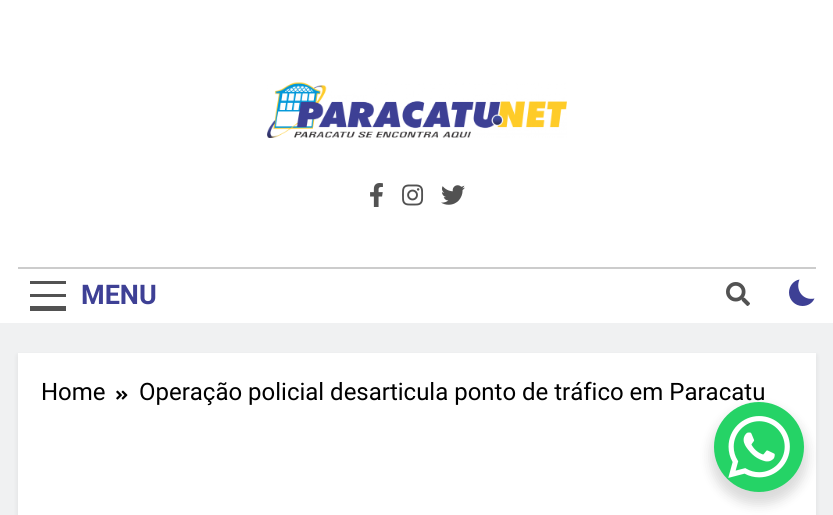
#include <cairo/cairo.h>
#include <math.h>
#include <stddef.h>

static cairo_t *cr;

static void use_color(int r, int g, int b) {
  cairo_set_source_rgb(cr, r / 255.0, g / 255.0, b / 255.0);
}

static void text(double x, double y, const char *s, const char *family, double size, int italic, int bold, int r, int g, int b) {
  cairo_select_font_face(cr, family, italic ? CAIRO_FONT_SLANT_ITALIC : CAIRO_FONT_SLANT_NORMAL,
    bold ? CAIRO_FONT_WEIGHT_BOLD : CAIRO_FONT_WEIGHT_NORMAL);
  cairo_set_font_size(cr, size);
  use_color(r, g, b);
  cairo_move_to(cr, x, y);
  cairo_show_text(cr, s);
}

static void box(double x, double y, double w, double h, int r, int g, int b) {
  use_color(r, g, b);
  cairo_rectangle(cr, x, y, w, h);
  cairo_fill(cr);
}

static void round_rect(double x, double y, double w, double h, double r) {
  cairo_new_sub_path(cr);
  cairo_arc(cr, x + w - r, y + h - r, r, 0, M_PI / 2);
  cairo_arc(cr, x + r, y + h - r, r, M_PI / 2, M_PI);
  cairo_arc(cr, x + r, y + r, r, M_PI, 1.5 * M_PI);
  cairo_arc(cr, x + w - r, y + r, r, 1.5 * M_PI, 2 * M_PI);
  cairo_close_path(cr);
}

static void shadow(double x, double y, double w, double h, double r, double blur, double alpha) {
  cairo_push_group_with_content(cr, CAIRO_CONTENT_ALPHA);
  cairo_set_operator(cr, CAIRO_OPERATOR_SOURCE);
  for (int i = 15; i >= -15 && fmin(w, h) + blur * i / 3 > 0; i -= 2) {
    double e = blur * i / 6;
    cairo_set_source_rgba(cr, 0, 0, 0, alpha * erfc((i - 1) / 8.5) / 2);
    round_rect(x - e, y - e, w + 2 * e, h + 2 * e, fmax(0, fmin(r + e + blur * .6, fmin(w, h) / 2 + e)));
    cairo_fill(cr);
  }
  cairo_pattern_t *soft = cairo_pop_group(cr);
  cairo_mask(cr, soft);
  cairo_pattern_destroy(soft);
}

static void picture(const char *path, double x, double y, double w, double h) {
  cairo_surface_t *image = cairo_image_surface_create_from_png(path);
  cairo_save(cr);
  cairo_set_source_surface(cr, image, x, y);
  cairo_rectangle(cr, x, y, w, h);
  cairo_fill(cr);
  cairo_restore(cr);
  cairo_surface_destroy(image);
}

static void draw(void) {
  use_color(240, 241, 242);
  cairo_paint(cr);
  box(0, 0, 833, 323, 255, 255, 255);
  picture("img_01.png", 267, 82, 300, 56);
  picture("img_02.png", 370, 183, 13, 24);
  picture("img_03.png", 402, 184, 22, 22);
  picture("img_04.png", 441, 185, 24, 20);
  box(18, 267, 798, 2, 204, 204, 204);
  box(30, 281, 36, 3, 82, 82, 82);
  box(30, 294, 36, 3, 82, 82, 82);
  box(30, 306, 36, 5, 82, 82, 82);
  picture("img_05.png", 726, 282, 24, 24);
  use_color(62, 64, 149);
  cairo_new_path(cr);
  cairo_move_to(cr, 814.5, 298.5);
  cairo_curve_to(cr, 803, 301, 795, 290, 799.5, 279.5);
  cairo_curve_to(cr, 793.5, 280.5, 789, 286, 789, 292.5);
  cairo_curve_to(cr, 789, 300, 795, 306, 802.5, 306);
  cairo_curve_to(cr, 808, 306, 812.5, 303, 814.5, 298.5);
  cairo_close_path(cr);
  cairo_fill(cr);
  use_color(0, 0, 0);
  shadow(18, 356, 798, 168, 0, 3, 0.08);
  box(18, 353, 798, 162, 255, 255, 255);
  picture("img_06.png", 116, 390, 12, 10);
  use_color(0, 0, 0);
  shadow(711, 408, 96, 96, 48, 6, 0.15);
  text(81, 304, "MENU", "Roboto", 27, 0, 1, 62, 64, 149);
  text(41, 400, "Home", "Roboto", 24, 0, 0, 0, 0, 0);
  text(139, 400, "Operação policial desarticula ponto de tráfico em Paracatu", "Roboto", 24, 0, 0, 0, 0, 0);
  use_color(37, 211, 102);
  cairo_new_path(cr);
  cairo_arc(cr, 759, 447, 45, 0, 2 * M_PI);
  cairo_fill(cr);
  picture("img_07.png", 728, 416, 62, 62);
}

int main(void) {
  cairo_surface_t *surface = cairo_image_surface_create(CAIRO_FORMAT_RGB24, 833, 515);
  cr = cairo_create(surface);
  cairo_font_options_t *options = cairo_font_options_create();
  cairo_font_options_set_hint_metrics(options, CAIRO_HINT_METRICS_OFF);
  cairo_font_options_set_hint_style(options, CAIRO_HINT_STYLE_NONE);
  cairo_set_font_options(cr, options);
  cairo_set_miter_limit(cr, 4);
  draw();
  cairo_surface_write_to_png(surface, "out.png");
  cairo_font_options_destroy(options);
  cairo_destroy(cr);
  cairo_surface_destroy(surface);
  return 0;
}
